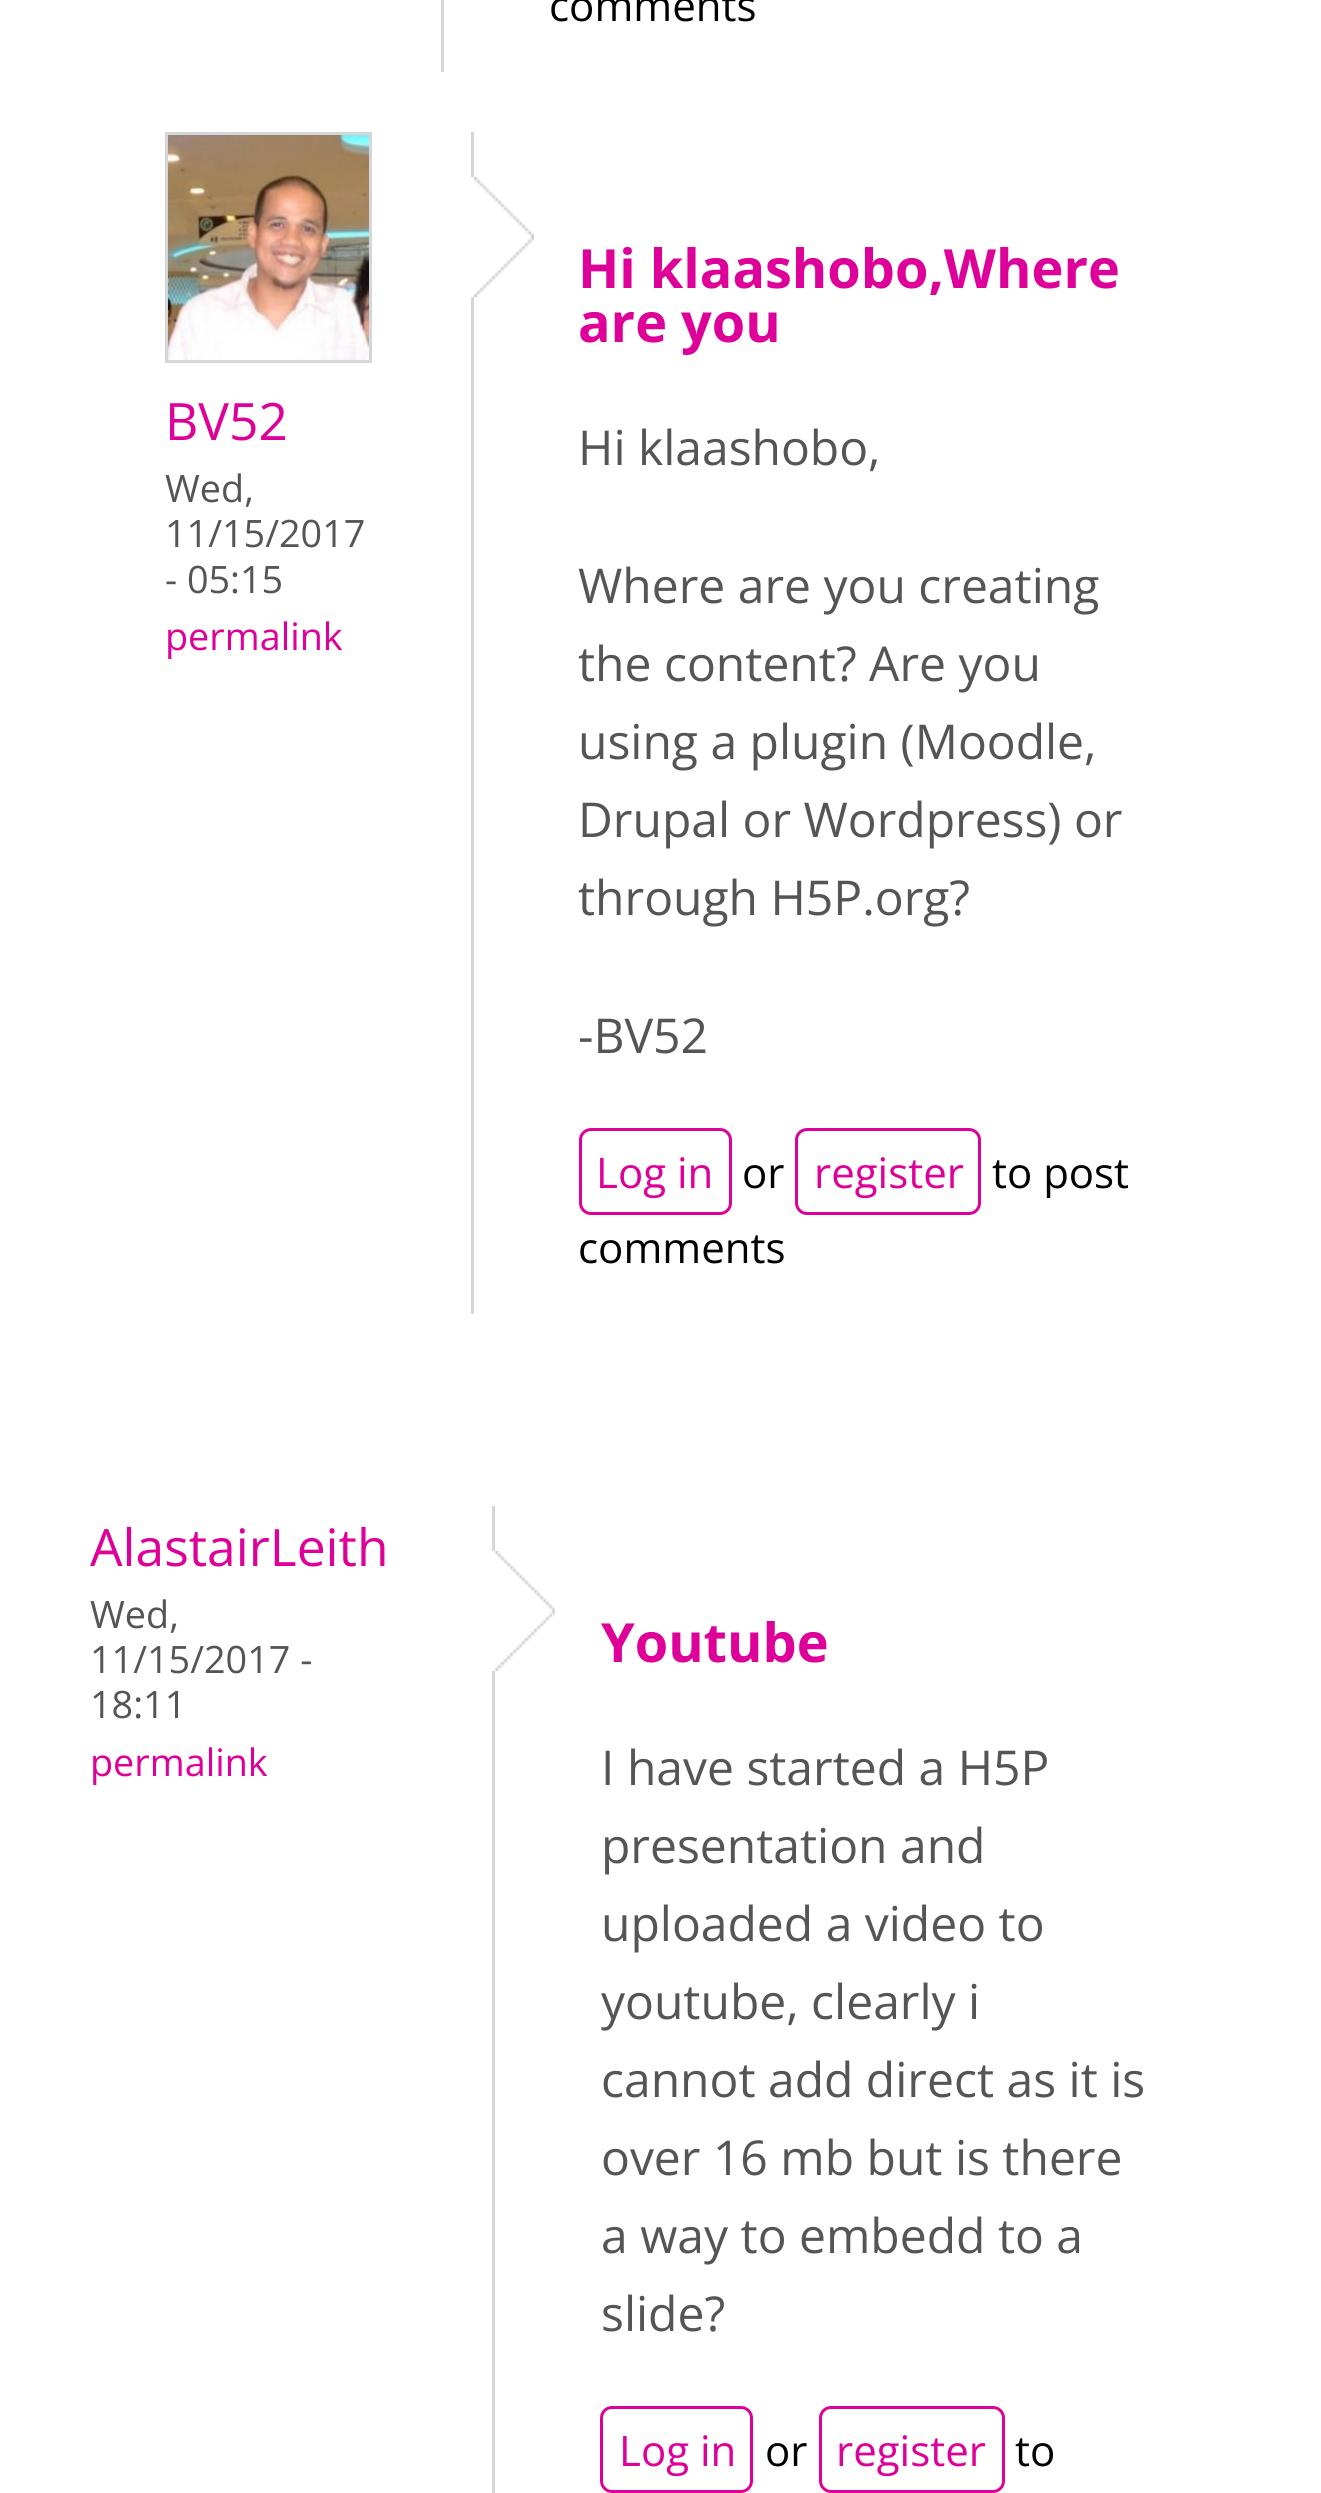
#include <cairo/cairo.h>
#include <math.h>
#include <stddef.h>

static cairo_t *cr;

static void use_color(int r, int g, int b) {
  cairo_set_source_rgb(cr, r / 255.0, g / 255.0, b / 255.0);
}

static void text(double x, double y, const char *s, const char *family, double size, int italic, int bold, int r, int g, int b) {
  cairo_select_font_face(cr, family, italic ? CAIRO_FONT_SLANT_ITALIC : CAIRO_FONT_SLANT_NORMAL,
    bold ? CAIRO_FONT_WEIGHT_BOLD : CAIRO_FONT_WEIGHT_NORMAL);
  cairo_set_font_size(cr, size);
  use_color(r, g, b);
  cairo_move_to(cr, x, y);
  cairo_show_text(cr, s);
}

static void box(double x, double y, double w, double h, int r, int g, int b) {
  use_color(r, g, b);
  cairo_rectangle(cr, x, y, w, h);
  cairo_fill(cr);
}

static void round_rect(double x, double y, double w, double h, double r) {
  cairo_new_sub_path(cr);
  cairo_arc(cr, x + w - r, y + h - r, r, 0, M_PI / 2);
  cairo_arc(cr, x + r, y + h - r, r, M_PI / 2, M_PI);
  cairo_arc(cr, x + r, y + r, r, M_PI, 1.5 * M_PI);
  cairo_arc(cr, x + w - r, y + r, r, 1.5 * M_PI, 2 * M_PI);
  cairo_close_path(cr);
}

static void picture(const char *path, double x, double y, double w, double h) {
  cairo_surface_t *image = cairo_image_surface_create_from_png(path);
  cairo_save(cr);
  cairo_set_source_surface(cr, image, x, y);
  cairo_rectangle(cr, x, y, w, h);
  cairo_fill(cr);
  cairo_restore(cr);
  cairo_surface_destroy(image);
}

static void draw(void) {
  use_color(255, 255, 255);
  cairo_paint(cr);
  box(441, 0, 3, 72, 211, 215, 217);
  cairo_rectangle(cr, 166.5, 133.5, 204, 228);
  cairo_set_line_width(cr, 3);
  cairo_stroke(cr);
  picture("img_01.png", 168, 135, 201, 225);
  box(471, 132, 3, 1182, 211, 215, 217);
  picture("img_02.png", 474, 177, 60, 120);
  box(471, 177, 3, 120, 255, 255, 255);
  round_rect(580.5, 1129.5, 150, 84, 10.5);
  use_color(221, 0, 153);
  cairo_stroke(cr);
  round_rect(796.5, 1129.5, 183, 84, 10.5);
  cairo_stroke(cr);
  box(492, 1506, 3, 987, 211, 215, 217);
  picture("img_03.png", 495, 1551, 60, 120);
  box(492, 1551, 3, 120, 255, 255, 255);
  round_rect(601.5, 2407.5, 150, 84, 10.5);
  use_color(221, 0, 153);
  cairo_stroke(cr);
  round_rect(820.5, 2407.5, 183, 84, 10.5);
  cairo_stroke(cr);
  text(549, 21, "comments", "Open Sans", 42, 0, 0, 0, 0, 0);
  text(165, 440, "BV52", "Open Sans", 51.5, 0, 0, 221, 0, 153);
  text(165, 502, "Wed,", "Open Sans", 37.75, 0, 0, 85, 85, 85);
  text(165, 547, "11/15/2017", "Open Sans", 37.75, 0, 0, 85, 85, 85);
  text(165, 593, "- 05:15", "Open Sans", 37.75, 0, 0, 85, 85, 85);
  text(165, 650, "permalink", "Open Sans", 37.75, 0, 0, 221, 0, 153);
  text(578, 288, "Hi klaashobo,Where", "Open Sans", 54, 0, 1, 221, 0, 153);
  text(578, 342, "are you", "Open Sans", 54, 0, 1, 221, 0, 153);
  text(578, 465, "Hi klaashobo,", "Open Sans", 48, 0, 0, 85, 85, 85);
  text(578, 603, "Where are you creating", "Open Sans", 48, 0, 0, 85, 85, 85);
  text(578, 681, "the content? Are you", "Open Sans", 48, 0, 0, 85, 85, 85);
  text(578, 759, "using a plugin (Moodle,", "Open Sans", 48, 0, 0, 85, 85, 85);
  text(578, 837, "Drupal or Wordpress) or", "Open Sans", 48, 0, 0, 85, 85, 85);
  text(578, 915, "through H5P.org?", "Open Sans", 48, 0, 0, 85, 85, 85);
  text(578, 1053, "-BV52", "Open Sans", 48, 0, 0, 85, 85, 85);
  text(596, 1188, "Log in", "Open Sans", 42, 0, 0, 221, 0, 153);
  text(742, 1188, "or", "Open Sans", 42, 0, 0, 0, 0, 0);
  text(814, 1188, "register", "Open Sans", 42, 0, 0, 221, 0, 153);
  text(992, 1188, "to post", "Open Sans", 42, 0, 0, 0, 0, 0);
  text(578, 1263, "comments", "Open Sans", 42, 0, 0, 0, 0, 0);
  text(90, 1566, "AlastairLeith", "Open Sans", 51.5, 0, 0, 221, 0, 153);
  text(90, 1628, "Wed,", "Open Sans", 37.75, 0, 0, 85, 85, 85);
  text(90, 1673, "11/15/2017 -", "Open Sans", 37.75, 0, 0, 85, 85, 85);
  text(90, 1718, "18:11", "Open Sans", 37.75, 0, 0, 85, 85, 85);
  text(90, 1776, "permalink", "Open Sans", 37.75, 0, 0, 221, 0, 153);
  text(601, 1662, "Youtube", "Open Sans", 54, 0, 1, 221, 0, 153);
  text(601, 1785, "I have started a H5P", "Open Sans", 48, 0, 0, 85, 85, 85);
  text(601, 1863, "presentation and", "Open Sans", 48, 0, 0, 85, 85, 85);
  text(601, 1941, "uploaded a video to", "Open Sans", 48, 0, 0, 85, 85, 85);
  text(601, 2019, "youtube, clearly i", "Open Sans", 48, 0, 0, 85, 85, 85);
  text(601, 2097, "cannot add direct as it is", "Open Sans", 48, 0, 0, 85, 85, 85);
  text(601, 2175, "over 16 mb but is there", "Open Sans", 48, 0, 0, 85, 85, 85);
  text(601, 2253, "a way to embedd to a", "Open Sans", 48, 0, 0, 85, 85, 85);
  text(601, 2331, "slide?", "Open Sans", 48, 0, 0, 85, 85, 85);
  text(619, 2466, "Log in", "Open Sans", 42, 0, 0, 221, 0, 153);
  text(765, 2466, "or", "Open Sans", 42, 0, 0, 0, 0, 0);
  text(836, 2466, "register", "Open Sans", 42, 0, 0, 221, 0, 153);
  text(1015, 2466, "to", "Open Sans", 42, 0, 0, 0, 0, 0);
}

int main(void) {
  cairo_surface_t *surface = cairo_image_surface_create(CAIRO_FORMAT_RGB24, 1321, 2493);
  cr = cairo_create(surface);
  cairo_font_options_t *options = cairo_font_options_create();
  cairo_font_options_set_hint_metrics(options, CAIRO_HINT_METRICS_OFF);
  cairo_font_options_set_hint_style(options, CAIRO_HINT_STYLE_NONE);
  cairo_set_font_options(cr, options);
  cairo_set_miter_limit(cr, 4);
  draw();
  cairo_surface_write_to_png(surface, "out.png");
  cairo_font_options_destroy(options);
  cairo_destroy(cr);
  cairo_surface_destroy(surface);
  return 0;
}
